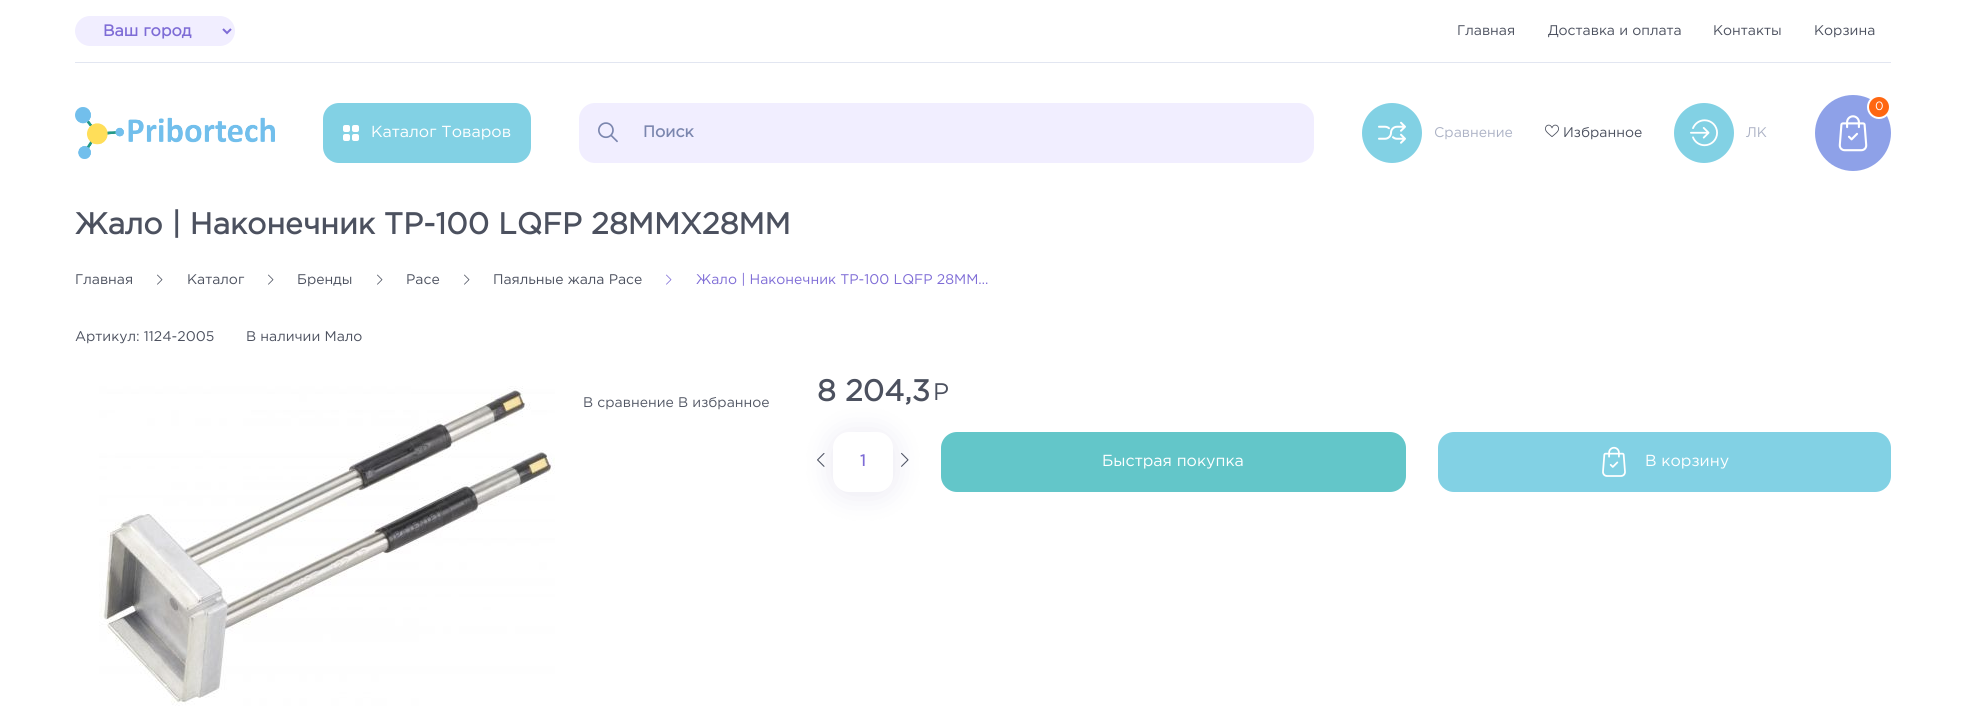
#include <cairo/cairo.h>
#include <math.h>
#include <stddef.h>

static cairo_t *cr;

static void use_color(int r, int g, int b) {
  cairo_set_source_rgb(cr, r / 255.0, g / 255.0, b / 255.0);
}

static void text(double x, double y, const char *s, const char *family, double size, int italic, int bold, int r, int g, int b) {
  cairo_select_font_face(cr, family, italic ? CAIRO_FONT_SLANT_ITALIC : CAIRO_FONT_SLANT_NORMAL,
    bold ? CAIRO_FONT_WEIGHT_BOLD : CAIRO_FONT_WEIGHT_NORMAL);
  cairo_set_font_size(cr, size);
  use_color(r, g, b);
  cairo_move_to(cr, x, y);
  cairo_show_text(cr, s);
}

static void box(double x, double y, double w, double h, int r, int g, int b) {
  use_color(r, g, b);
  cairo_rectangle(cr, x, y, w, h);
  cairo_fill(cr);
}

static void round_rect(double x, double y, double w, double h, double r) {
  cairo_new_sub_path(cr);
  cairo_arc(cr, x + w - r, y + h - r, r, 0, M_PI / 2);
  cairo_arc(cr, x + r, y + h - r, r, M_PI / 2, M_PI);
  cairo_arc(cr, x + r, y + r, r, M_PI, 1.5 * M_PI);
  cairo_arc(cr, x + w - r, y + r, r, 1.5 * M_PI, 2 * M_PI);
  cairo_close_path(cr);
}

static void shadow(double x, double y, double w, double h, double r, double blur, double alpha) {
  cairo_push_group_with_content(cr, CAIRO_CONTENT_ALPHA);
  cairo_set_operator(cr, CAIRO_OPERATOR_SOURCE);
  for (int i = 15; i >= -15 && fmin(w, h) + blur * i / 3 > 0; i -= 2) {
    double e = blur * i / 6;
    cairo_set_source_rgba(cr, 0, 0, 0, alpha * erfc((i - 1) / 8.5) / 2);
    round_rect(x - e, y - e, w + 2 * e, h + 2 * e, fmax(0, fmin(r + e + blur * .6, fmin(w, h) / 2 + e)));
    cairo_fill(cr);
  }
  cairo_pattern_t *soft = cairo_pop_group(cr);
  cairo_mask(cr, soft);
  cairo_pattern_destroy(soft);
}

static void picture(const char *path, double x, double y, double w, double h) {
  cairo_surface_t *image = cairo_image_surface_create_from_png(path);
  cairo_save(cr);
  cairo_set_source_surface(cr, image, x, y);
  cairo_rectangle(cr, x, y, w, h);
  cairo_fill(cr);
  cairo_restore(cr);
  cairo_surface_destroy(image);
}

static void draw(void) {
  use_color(255, 255, 255);
  cairo_paint(cr);
  box(75, 62, 1816, 1, 226, 230, 241);
  use_color(241, 238, 255);
  round_rect(75, 16, 160, 30, 15);
  cairo_fill(cr);
  cairo_new_path(cr);
  cairo_move_to(cr, 223, 29);
  cairo_line_to(cr, 227, 33);
  cairo_line_to(cr, 231, 29);
  use_color(126, 108, 214);
  cairo_stroke(cr);
  picture("img_01.png", 75, 107, 200, 52);
  use_color(130, 209, 228);
  round_rect(323, 103, 208, 60, 16);
  cairo_fill(cr);
  picture("img_02.png", 343, 125, 16, 16);
  use_color(241, 238, 255);
  round_rect(579, 103, 735, 60, 16);
  cairo_fill(cr);
  picture("img_03.png", 598, 122, 20, 21);
  use_color(142, 161, 232);
  cairo_arc(cr, 1853, 133, 38, 0, 2 * M_PI);
  cairo_fill(cr);
  picture("img_04.png", 1838, 115, 30, 37);
  use_color(255, 103, 17);
  cairo_arc(cr, 1879, 107, 11, 0, 2 * M_PI);
  cairo_fill_preserve(cr);
  use_color(255, 255, 255);
  cairo_stroke(cr);
  use_color(130, 209, 228);
  cairo_arc(cr, 1392, 133, 30, 0, 2 * M_PI);
  cairo_fill(cr);
  picture("img_05.png", 1378, 121, 28, 23);
  picture("img_06.png", 1545, 124, 14, 13);
  cairo_arc(cr, 1704, 133, 30, 0, 2 * M_PI);
  cairo_fill(cr);
  picture("img_07.png", 1690, 119, 28, 28);
  picture("img_08.png", 157, 274, 6, 11);
  picture("img_08.png", 268, 274, 6, 11);
  picture("img_08.png", 377, 274, 6, 11);
  picture("img_08.png", 464, 274, 6, 11);
  picture("img_09.png", 666, 274, 6, 11);
  picture("img_10.png", 99, 386, 456, 320);
  picture("img_11.png", 817, 453, 8, 14);
  picture("img_12.png", 901, 452, 8, 15);
  use_color(138, 128, 183);
  shadow(833, 434, 60, 60, 16, 14.5, 0.2);
  use_color(255, 255, 255);
  round_rect(833, 432, 60, 60, 16);
  cairo_fill(cr);
  use_color(99, 198, 201);
  round_rect(941, 432, 465, 60, 16);
  cairo_fill(cr);
  use_color(130, 209, 228);
  round_rect(1438, 432, 453, 60, 16);
  cairo_fill(cr);
  picture("img_13.png", 1602, 446, 24, 31);
  text(103, 36, "Ваш город", "Gotham", 16, 0, 1, 126, 108, 214);
  text(1457, 35, "Главная", "Gotham", 14, 0, 0, 76, 81, 95);
  text(1548, 35, "Доставка и оплата", "Gotham", 14, 0, 0, 76, 81, 95);
  text(1713, 35, "Контакты", "Gotham", 14, 0, 0, 76, 81, 95);
  text(1814, 35, "Корзина", "Gotham", 14, 0, 0, 76, 81, 95);
  text(371, 137, "Каталог Товаров", "Gotham", 16, 0, 0, 255, 255, 255);
  text(643, 137, "Поиск", "Gotham", 16, 0, 1, 123, 134, 174);
  text(1875, 110, "0", "Gotham", 12, 0, 0, 255, 255, 255);
  text(1434, 137, "Сравнение", "Gotham", 14, 0, 0, 172, 178, 197);
  text(1563, 137, "Избранное", "Gotham", 14, 0, 0, 76, 81, 95);
  text(1746, 137, "ЛК", "Gotham", 14, 0, 0, 172, 178, 197);
  text(75, 234, "Жало | Наконечник TP-100 LQFP 28MMX28MM", "Gotham", 30, 0, 1, 76, 81, 95);
  text(75, 284, "Главная", "Gotham", 14, 0, 0, 76, 81, 95);
  text(187, 284, "Каталог", "Gotham", 14, 0, 0, 76, 81, 95);
  text(297, 284, "Бренды", "Gotham", 14, 0, 0, 76, 81, 95);
  text(406, 284, "Pace", "Gotham", 14, 0, 0, 76, 81, 95);
  text(493, 284, "Паяльные жала Pace", "Gotham", 14, 0, 0, 76, 81, 95);
  text(696, 284, "Жало | Наконечник TP-100 LQFP 28MM…", "Gotham", 14, 0, 0, 126, 108, 214);
  text(75, 341, "Артикул: 1124-2005", "Gotham", 14, 0, 0, 76, 81, 95);
  text(246, 341, "В наличии Мало", "Gotham", 14, 0, 0, 76, 81, 95);
  text(583, 407, "В сравнение В избранное", "Gotham", 14, 0, 0, 83, 88, 101);
  text(817, 401, "8 204,3", "Gotham", 30, 0, 1, 76, 81, 95);
  text(933, 400, "Р", "Gotham", 24, 0, 0, 76, 81, 95);
  text(860, 466, "1", "Gotham", 16, 0, 1, 126, 108, 214);
  text(1102, 466, "Быстрая покупка", "Gotham", 16, 0, 0, 255, 255, 255);
  text(1645, 466, "В корзину", "Gotham", 16, 0, 0, 255, 255, 255);
}

int main(void) {
  cairo_surface_t *surface = cairo_image_surface_create(CAIRO_FORMAT_RGB24, 1966, 711);
  cr = cairo_create(surface);
  cairo_font_options_t *options = cairo_font_options_create();
  cairo_font_options_set_hint_metrics(options, CAIRO_HINT_METRICS_OFF);
  cairo_font_options_set_hint_style(options, CAIRO_HINT_STYLE_NONE);
  cairo_set_font_options(cr, options);
  cairo_set_miter_limit(cr, 4);
  draw();
  cairo_surface_write_to_png(surface, "out.png");
  cairo_font_options_destroy(options);
  cairo_destroy(cr);
  cairo_surface_destroy(surface);
  return 0;
}
